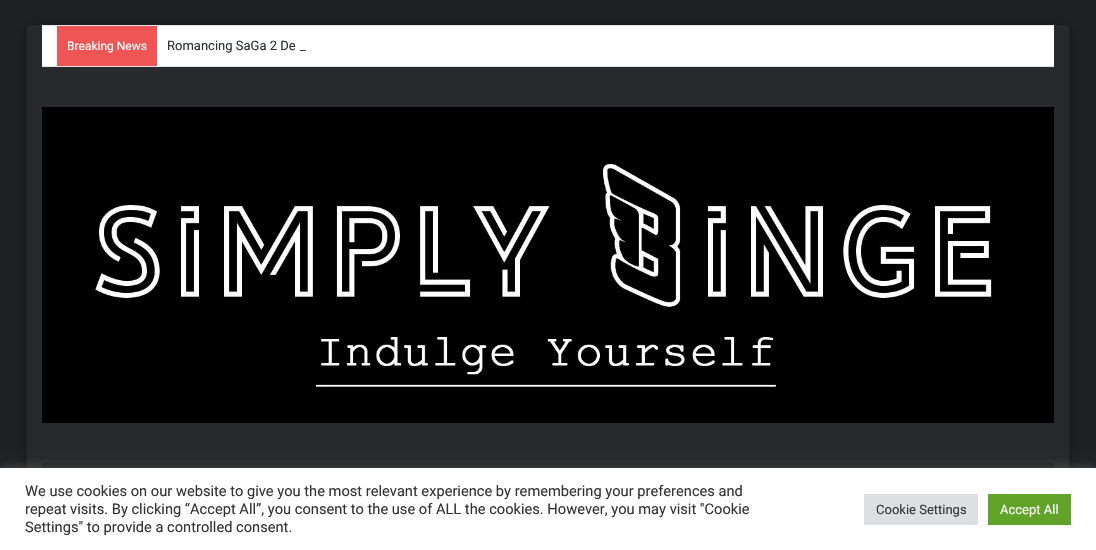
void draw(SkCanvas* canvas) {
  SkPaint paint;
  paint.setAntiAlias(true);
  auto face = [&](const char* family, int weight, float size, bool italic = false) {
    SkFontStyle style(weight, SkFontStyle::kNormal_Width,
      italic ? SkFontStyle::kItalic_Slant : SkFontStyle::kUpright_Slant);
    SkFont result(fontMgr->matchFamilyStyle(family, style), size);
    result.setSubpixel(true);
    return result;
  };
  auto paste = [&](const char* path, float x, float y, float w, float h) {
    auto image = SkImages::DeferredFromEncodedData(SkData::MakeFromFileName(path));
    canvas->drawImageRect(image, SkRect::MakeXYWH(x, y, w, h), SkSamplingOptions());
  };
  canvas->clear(0xff1f2024);
  paint.setColor(0x4d000000);
  paint.setMaskFilter(SkMaskFilter::MakeBlur(kNormal_SkBlurStyle, 5));
  canvas->drawRect(SkRect::MakeXYWH(27, 26, 1042, 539), paint);
  paint.setMaskFilter(nullptr);
  {
    const struct { float x, y, w, h; SkColor color; } items[] = {
      {27, 25, 1042, 443, 0xff27292d},
      {42, 26, 1012, 40, 0xffffffff},
      {42, 25, 1012, 1, 0xffe6e6e6},
      {42, 66, 1012, 1, 0xffe6e6e6},
      {57, 26, 100, 40, 0xfff05555},
    };
    for (auto [x, y, w, h, color] : items) {
      paint.setColor(color);
      canvas->drawRect(SkRect::MakeXYWH(x, y, w, h), paint);
    }
  }
  paste("img/1.png", 42, 107, 1012, 316);
  paint.setColor(0xff1f2024);
  canvas->drawRect(SkRect::MakeXYWH(42, 463, 1012, 5), paint);
  paint.setColor(0x4dacabab);
  paint.setMaskFilter(SkMaskFilter::MakeBlur(kNormal_SkBlurStyle, 5));
  canvas->drawRect(SkRect::MakeXYWH(0, 467, 1096, 82), paint);
  paint.setMaskFilter(nullptr);
  {
    const struct { float x, y, w, h; SkColor color; } items[] = {
      {0, 468, 1096, 82, 0xffffffff},
      {864, 494, 114, 31, 0xffdedfe0},
      {988, 494, 83, 31, 0xff61a229},
    };
    for (auto [x, y, w, h, color] : items) {
      paint.setColor(color);
      canvas->drawRect(SkRect::MakeXYWH(x, y, w, h), paint);
    }
  }
  auto f0 = face("Roboto", 400, 12);
  paint.setColor(0xffffffff);
  canvas->drawString("Breaking News", 67, 50, f0, paint);
  auto f1 = face("Roboto", 400, 13);
  paint.setColor(0xff2c2f34);
  canvas->drawString("Romancing SaGa 2 De", 167, 50, f1, paint);
  canvas->drawString("_", 300, 50, f1, paint);
  auto f2 = face("Roboto", 400, 14.65f);
  paint.setColor(0xff333333);
  {
    const struct { const char* s; float x, y; } items[] = {
      {"We use cookies on our website to give you the most relevant experience by remembering your preferences and", 25, 496},
      {"repeat visits. By clicking “Accept All”, you consent to the use of ALL the cookies. However, you may visit \"Cookie", 25, 514},
      {"Settings\" to provide a controlled consent.", 25, 532},
    };
    for (auto [s, x, y] : items) {
      canvas->drawString(s, x, y, f2, paint);
    }
  }
  canvas->drawString("Cookie Settings", 876, 514, f1, paint);
  paint.setColor(0xffffffff);
  canvas->drawString("Accept All", 1000, 514, f1, paint);
}
